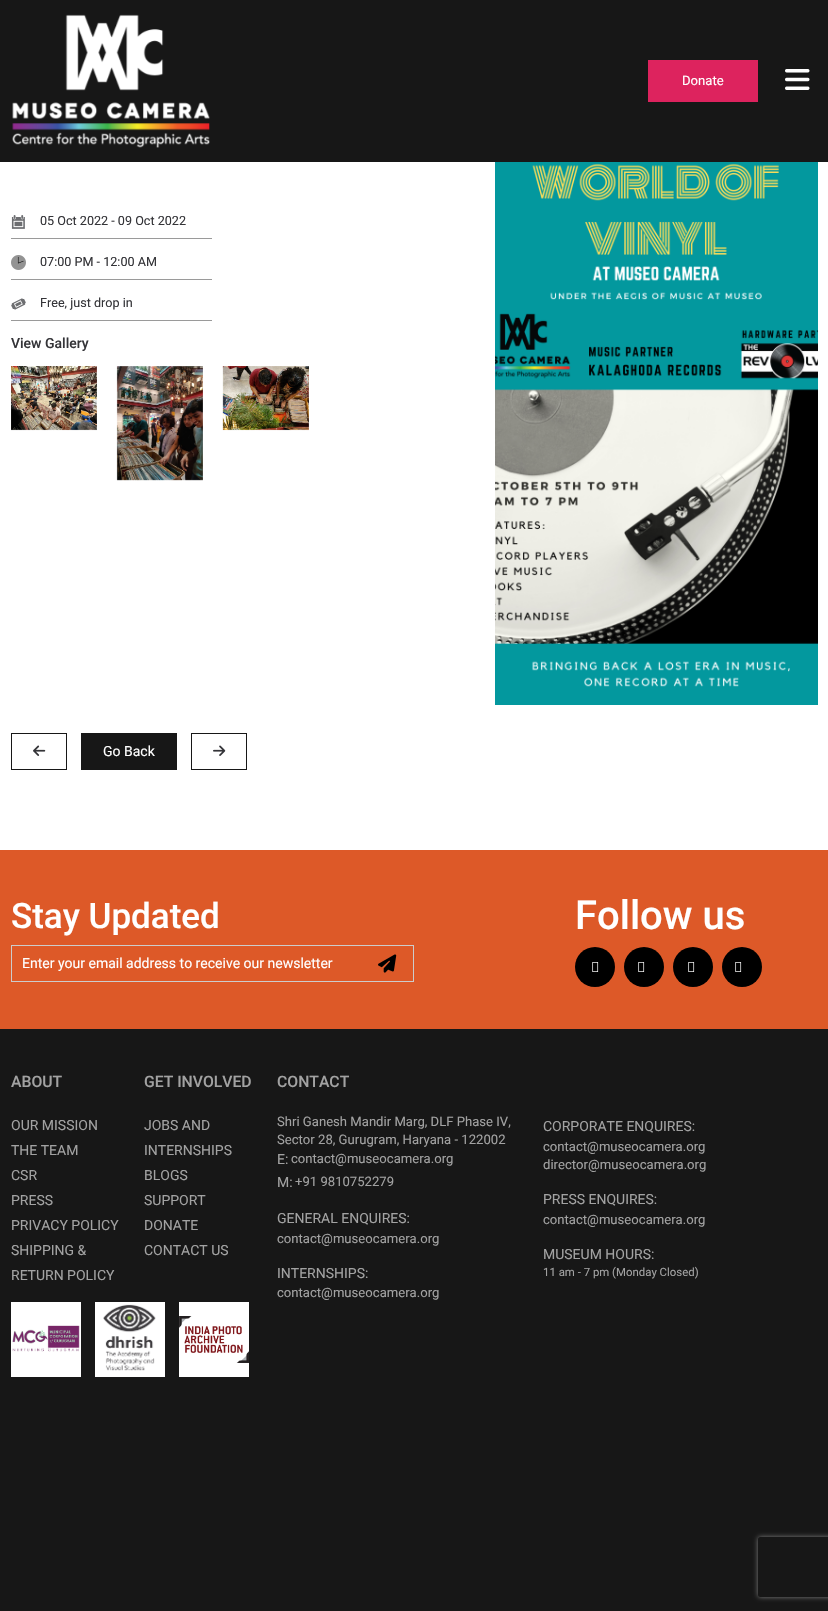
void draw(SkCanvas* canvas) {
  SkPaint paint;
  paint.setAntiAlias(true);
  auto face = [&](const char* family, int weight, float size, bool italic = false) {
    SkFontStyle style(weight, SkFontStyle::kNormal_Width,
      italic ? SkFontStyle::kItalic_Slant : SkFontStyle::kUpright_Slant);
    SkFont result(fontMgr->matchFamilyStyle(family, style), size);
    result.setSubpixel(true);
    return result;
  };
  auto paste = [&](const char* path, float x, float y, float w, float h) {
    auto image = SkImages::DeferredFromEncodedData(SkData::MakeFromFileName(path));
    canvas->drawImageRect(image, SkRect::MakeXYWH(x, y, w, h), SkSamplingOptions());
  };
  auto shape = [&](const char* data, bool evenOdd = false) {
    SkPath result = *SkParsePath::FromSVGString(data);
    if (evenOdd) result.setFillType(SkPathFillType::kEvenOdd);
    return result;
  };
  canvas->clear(0xffffffff);
  paint.setColor(0xff171717);
  canvas->drawRect(SkRect::MakeXYWH(0, 0, 828, 162), paint);
  paste("img/1.png", 12, 14, 198, 134);
  paint.setColor(0xffdd235e);
  canvas->drawRect(SkRect::MakeXYWH(648, 60, 110, 42), paint);
  paste("img/2.png", 785, 69, 25, 21);
  paint.setColor(0xff9a9a9a);
  canvas->drawRect(SkRect::MakeXYWH(11, 238, 201, 1), paint);
  paste("img/3.png", 11, 215, 14, 14);
  canvas->drawRect(SkRect::MakeXYWH(11, 279, 201, 1), paint);
  paste("img/4.png", 11, 255, 15, 15);
  canvas->drawRect(SkRect::MakeXYWH(11, 320, 201, 1), paint);
  paste("img/5.png", 11, 298, 15, 12);
  paste("img/6.png", 11, 366, 86, 65);
  paste("img/7.png", 116, 366, 87, 115);
  paste("img/8.png", 222, 366, 87, 65);
  paste("img/9.png", 495, 162, 323, 543);
  paint.setStroke(true);
  paint.setStrokeWidth(1);
  paint.setColor(0xff171717);
  canvas->drawRect(SkRect::MakeXYWH(11.5f, 733.5f, 55, 36), paint);
  paste("img/10.png", 33, 745, 13, 11);
  paint.setStroke(false);
  canvas->drawRect(SkRect::MakeXYWH(81, 733, 96, 37), paint);
  paint.setStroke(true);
  canvas->drawRect(SkRect::MakeXYWH(191.5f, 733.5f, 55, 36), paint);
  paste("img/11.png", 213, 745, 13, 11);
  paint.setStroke(false);
  paint.setColor(0xffdd5928);
  canvas->drawRect(SkRect::MakeXYWH(0, 850, 828, 179), paint);
  paint.setStroke(true);
  paint.setColor(0xffcccccc);
  canvas->drawRect(SkRect::MakeXYWH(11.5f, 945.5f, 402, 36), paint);
  paste("img/12.png", 378, 954, 19, 19);
  paint.setStroke(false);
  paint.setColor(0xff000000);
  canvas->drawCircle(595, 967, 20, paint);
  paste("img/13.png", 592, 962, 7, 10);
  canvas->drawCircle(644, 967, 20, paint);
  paste("img/13.png", 638, 962, 7, 10);
  canvas->drawCircle(693, 967, 20, paint);
  paste("img/13.png", 688, 962, 7, 10);
  canvas->drawCircle(742, 967, 20, paint);
  paste("img/13.png", 735, 962, 7, 10);
  paint.setColor(0xff171717);
  canvas->drawRect(SkRect::MakeXYWH(0, 1029, 828, 582), paint);
  paint.setColor(0xffffffff);
  canvas->drawRect(SkRect::MakeXYWH(11, 1302, 70, 75), paint);
  paste("img/14.png", 12, 1325, 68, 27);
  canvas->drawRect(SkRect::MakeXYWH(95, 1302, 70, 75), paint);
  paste("img/15.png", 103, 1304, 53, 67);
  canvas->drawRect(SkRect::MakeXYWH(179, 1302, 70, 75), paint);
  paste("img/16.png", 179, 1316, 70, 47);
  canvas->save();
  canvas->clipPath(shape("M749 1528H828V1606H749ZM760 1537H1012C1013 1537 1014 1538 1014 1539V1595C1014 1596 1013 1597 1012 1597H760C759 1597 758 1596 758 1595V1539C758 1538 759 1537 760 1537Z", true), true);
  paint.setColor(0xff808080);
  paint.setMaskFilter(SkMaskFilter::MakeBlur(kNormal_SkBlurStyle, 2.5f));
  canvas->drawRoundRect(SkRect::MakeXYWH(758, 1537, 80, 60), 2, 2, paint);
  paint.setMaskFilter(nullptr);
  canvas->restore();
  auto f0 = face("Roboto", 400, 13.1f);
  paint.setColor(0xffffffff);
  canvas->drawString("Donate", 682, 85, f0, paint);
  auto f1 = face("Roboto", 400, 12.6f);
  paint.setColor(0xff343438);
  {
    const struct { const char* s; float x, y; } items[] = {
      {"05 Oct 2022 - 09 Oct 2022", 40, 225},
      {"07:00 PM - 12:00 AM", 40, 266},
      {"Free, just drop in", 40, 307},
    };
    for (auto [s, x, y] : items) {
      canvas->drawString(s, x, y, f1, paint);
    }
  }
  auto f2 = face("Roboto", 500, 14);
  canvas->drawString("View Gallery", 11, 348, f2, paint);
  auto f3 = face("Roboto", 400, 14);
  paint.setColor(0xffffffff);
  canvas->drawString("Go Back", 103, 756, f3, paint);
  auto f4 = face("Roboto", 500, 35);
  canvas->drawString("Stay Updated", 11, 928, f4, paint);
  canvas->drawString("Enter your email address to receive our newsletter", 22, 968, f3, paint);
  auto f5 = face("Roboto", 500, 40);
  canvas->drawString("Follow us", 575, 929, f5, paint);
  auto f6 = face("Roboto", 500, 15.75f);
  paint.setColor(0xffa2a2a2);
  canvas->drawString("ABOUT", 11, 1087, f6, paint);
  {
    const struct { const char* s; float x, y; } items[] = {
      {"OUR MISSION", 11, 1130},
      {"THE TEAM", 11, 1155},
      {"CSR", 11, 1180},
      {"PRESS", 11, 1205},
      {"PRIVACY POLICY", 11, 1230},
      {"SHIPPING &", 11, 1255},
      {"RETURN POLICY", 11, 1280},
    };
    for (auto [s, x, y] : items) {
      canvas->drawString(s, x, y, f3, paint);
    }
  }
  canvas->drawString("GET INVOLVED", 144, 1087, f6, paint);
  {
    const struct { const char* s; float x, y; } items[] = {
      {"JOBS AND", 144, 1130},
      {"INTERNSHIPS", 144, 1155},
      {"BLOGS", 144, 1180},
      {"SUPPORT", 144, 1205},
      {"DONATE", 144, 1230},
      {"CONTACT US", 144, 1255},
    };
    for (auto [s, x, y] : items) {
      canvas->drawString(s, x, y, f3, paint);
    }
  }
  canvas->drawString("CONTACT", 277, 1087, f6, paint);
  canvas->drawString("Shri Ganesh Mandir Marg, DLF Phase IV,", 277, 1126, f0, paint);
  canvas->drawString("Sector 28, Gurugram, Haryana - 122002", 277, 1144, f0, paint);
  canvas->drawString("E:", 277, 1164, f3, paint);
  canvas->drawString("contact@museocamera.org", 291, 1163, f0, paint);
  canvas->drawString("M:", 277, 1187, f3, paint);
  canvas->drawString("+91 9810752279", 295, 1186, f0, paint);
  canvas->drawString("GENERAL ENQUIRES:", 277, 1223, f3, paint);
  canvas->drawString("contact@museocamera.org", 277, 1243, f0, paint);
  canvas->drawString("INTERNSHIPS:", 277, 1278, f3, paint);
  canvas->drawString("contact@museocamera.org", 277, 1297, f0, paint);
  canvas->drawString("CORPORATE ENQUIRES:", 543, 1131, f3, paint);
  canvas->drawString("contact@museocamera.org", 543, 1151, f0, paint);
  canvas->drawString("director@museocamera.org", 543, 1169, f0, paint);
  canvas->drawString("PRESS ENQUIRES:", 543, 1204, f3, paint);
  canvas->drawString("contact@museocamera.org", 543, 1224, f0, paint);
  canvas->drawString("MUSEUM HOURS:", 543, 1259, f3, paint);
  auto f7 = face("Roboto", 400, 11.4f);
  canvas->drawString("11 am - 7 pm (Monday Closed)", 543, 1276, f7, paint);
}
